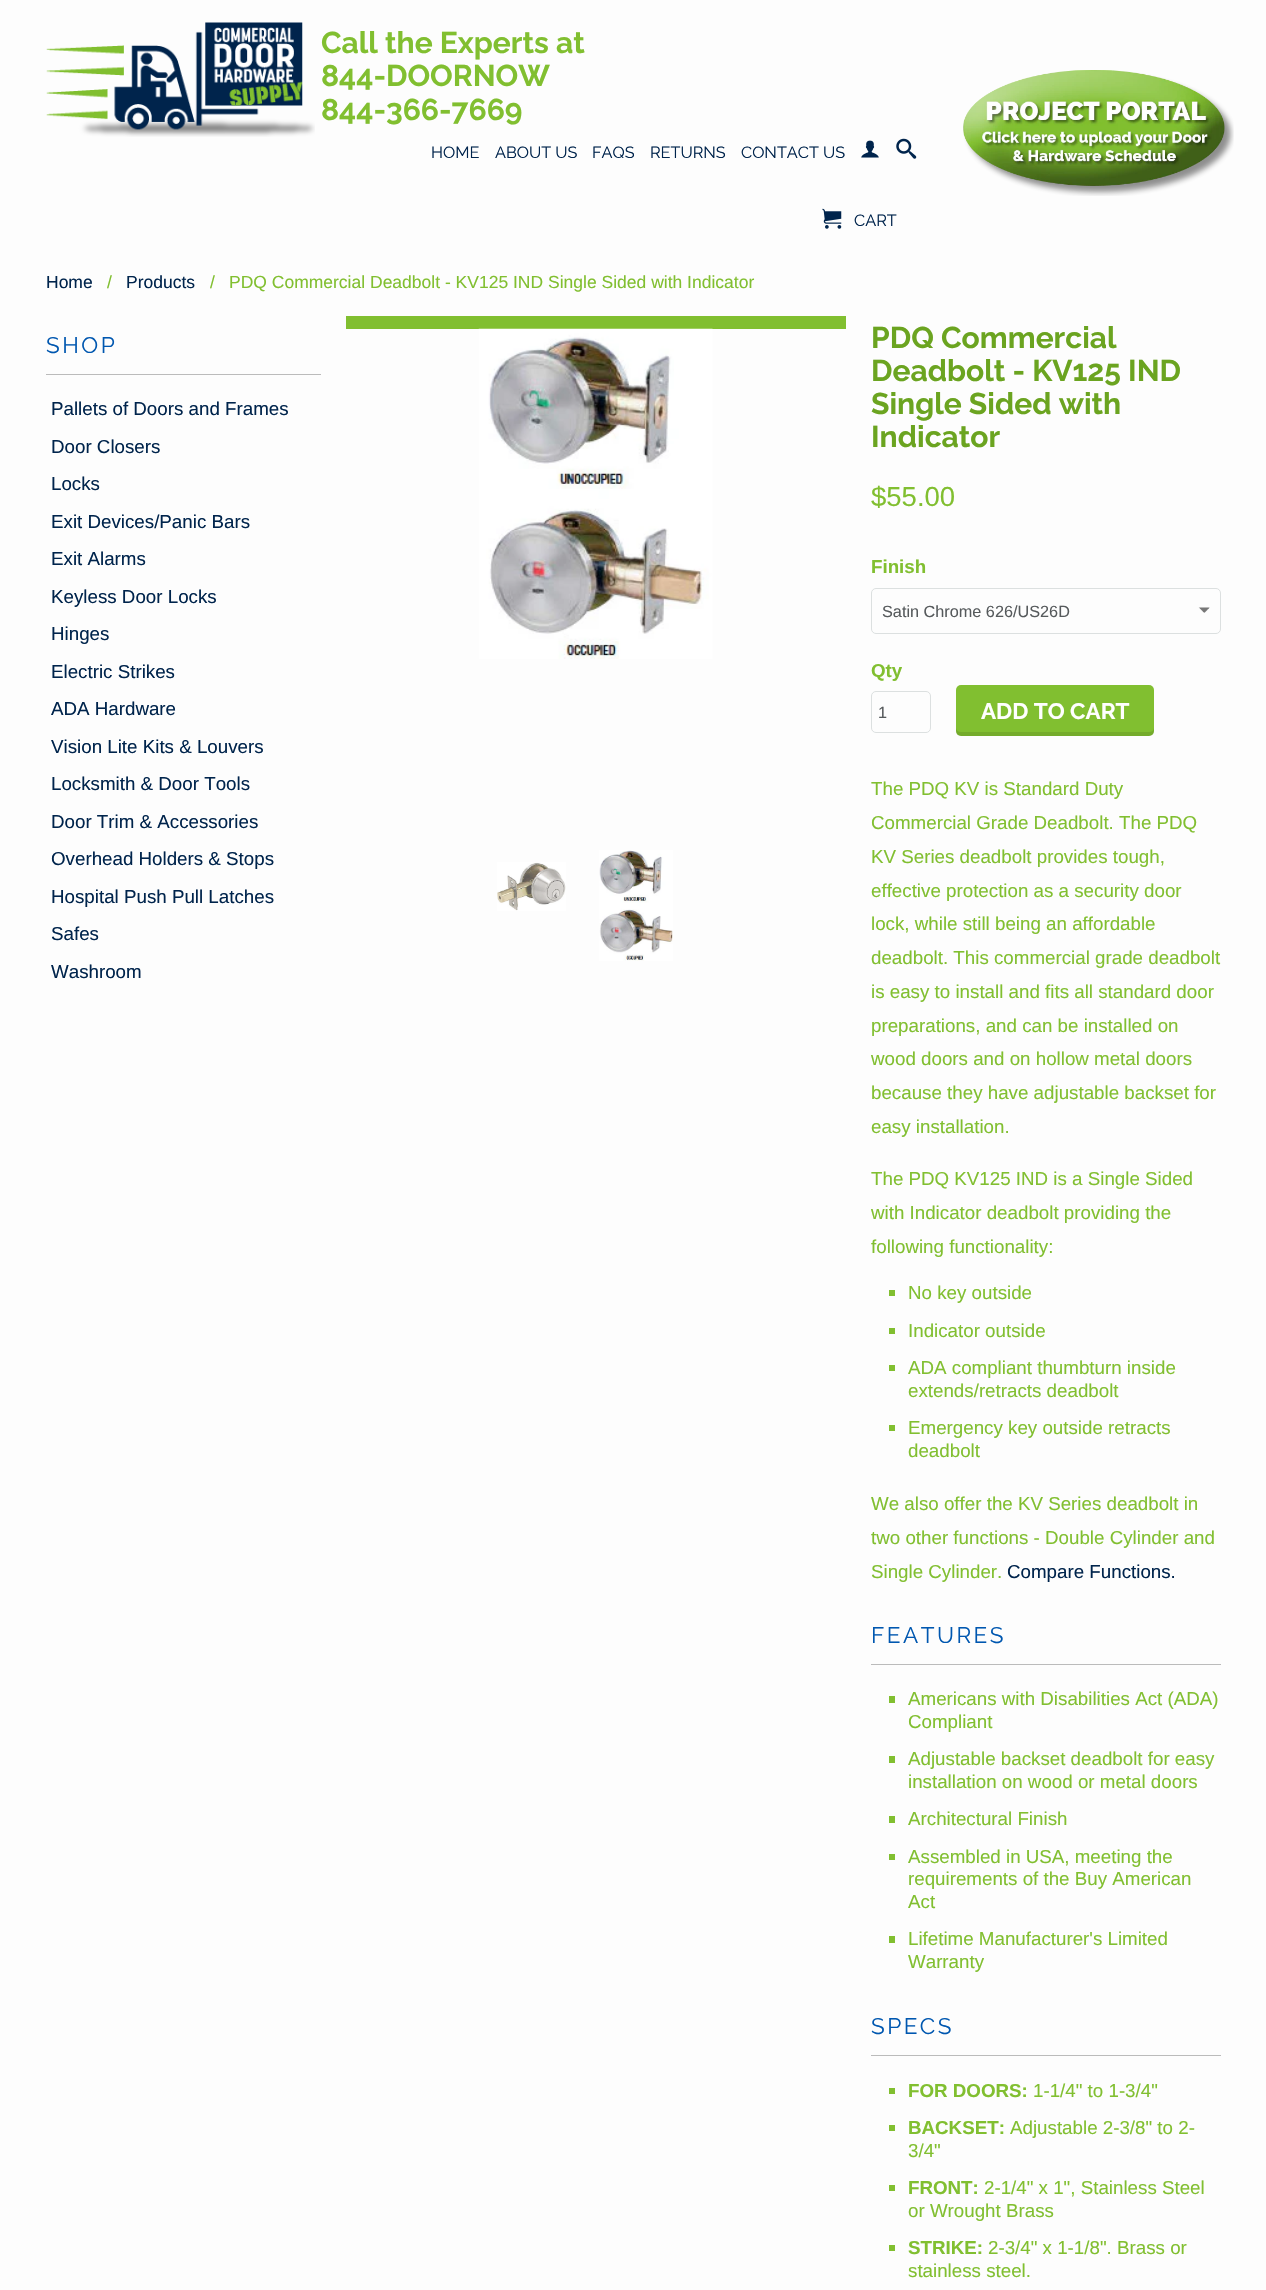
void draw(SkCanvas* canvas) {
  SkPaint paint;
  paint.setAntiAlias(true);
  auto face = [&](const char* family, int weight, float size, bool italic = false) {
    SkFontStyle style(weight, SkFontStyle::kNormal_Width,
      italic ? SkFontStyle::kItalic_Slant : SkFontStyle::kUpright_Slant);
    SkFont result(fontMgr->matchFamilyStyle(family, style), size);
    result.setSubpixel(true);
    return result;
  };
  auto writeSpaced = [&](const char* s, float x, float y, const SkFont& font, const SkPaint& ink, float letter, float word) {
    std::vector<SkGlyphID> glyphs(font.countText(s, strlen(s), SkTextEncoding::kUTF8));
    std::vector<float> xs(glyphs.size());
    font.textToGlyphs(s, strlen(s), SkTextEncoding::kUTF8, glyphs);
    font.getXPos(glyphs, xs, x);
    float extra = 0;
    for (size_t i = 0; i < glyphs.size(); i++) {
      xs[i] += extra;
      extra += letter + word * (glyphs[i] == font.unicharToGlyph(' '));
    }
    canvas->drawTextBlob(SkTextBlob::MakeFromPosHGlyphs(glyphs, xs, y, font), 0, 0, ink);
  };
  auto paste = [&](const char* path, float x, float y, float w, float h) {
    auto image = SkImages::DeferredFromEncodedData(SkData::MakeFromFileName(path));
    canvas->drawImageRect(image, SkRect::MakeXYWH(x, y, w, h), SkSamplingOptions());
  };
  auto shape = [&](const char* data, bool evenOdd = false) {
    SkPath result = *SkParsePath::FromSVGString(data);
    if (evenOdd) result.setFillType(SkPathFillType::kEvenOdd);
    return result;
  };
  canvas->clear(0xfffdfdfd);
  paste("img/1.png", 46, 22, 269, 115);
  paste("img/2.png", 861, 140, 18, 18);
  paste("img/3.png", 896, 138, 21, 21);
  paste("img/4.png", 822, 208, 20, 21);
  paste("img/5.png", 963, 70, 271, 126);
  paint.setColor(0xffbbbbbb);
  canvas->drawRect(SkRect::MakeXYWH(46, 374, 275, 1), paint);
  paint.setColor(0xff81bf30);
  canvas->drawRect(SkRect::MakeXYWH(346, 316, 500, 13), paint);
  paste("img/6.png", 478, 328, 235, 331);
  paste("img/7.png", 497, 862, 69, 49);
  paste("img/8.png", 599, 850, 74, 111);
  paste("img/9.png", 1198, 607, 12, 6);
  paint.setStroke(true);
  paint.setStrokeWidth(1);
  paint.setColor(0xffdce0e0);
  canvas->drawRoundRect(SkRect::MakeXYWH(871.5f, 588.5f, 349, 45), 4.5f, 4.5f, paint);
  canvas->drawRoundRect(SkRect::MakeXYWH(871.5f, 691.5f, 59, 41), 4.5f, 4.5f, paint);
  paint.setStroke(false);
  paint.setColor(0xff81bf30);
  canvas->drawRoundRect(SkRect::MakeXYWH(956, 685, 198, 51), 5, 5, paint);
  paint.setColor(0x1a000000);
  canvas->drawPath(shape("M956 728V731C956 734 958 736 961 736H1149C1152 736 1154 734 1154 731V728C1154 730 1152 732 1149 732H961C958 732 956 730 956 728Z"), paint);
  {
    const struct { float x, y, w, h; SkColor color; } items[] = {
      {889, 1290, 6, 6, 0xff81bf30},
      {889, 1328, 6, 6, 0xff81bf30},
      {889, 1365, 6, 6, 0xff81bf30},
      {889, 1425, 6, 6, 0xff81bf30},
      {871, 1664, 350, 1, 0xffbbbbbb},
      {889, 1696, 6, 7, 0xff81bf30},
      {889, 1756, 6, 7, 0xff81bf30},
      {889, 1816, 6, 7, 0xff81bf30},
      {889, 1854, 6, 6, 0xff81bf30},
      {889, 1936, 6, 7, 0xff81bf30},
      {871, 2055, 350, 1, 0xffbbbbbb},
      {889, 2088, 6, 6, 0xff81bf30},
      {889, 2125, 6, 6, 0xff81bf30},
      {889, 2185, 6, 6, 0xff81bf30},
      {889, 2245, 6, 6, 0xff81bf30},
    };
    for (auto [x, y, w, h, color] : items) {
      paint.setColor(color);
      canvas->drawRect(SkRect::MakeXYWH(x, y, w, h), paint);
    }
  }
  auto f0 = face("Raleway", 700, 30);
  {
    const struct { const char* s; float x, y; } items[] = {
      {"Call the Experts at", 321, 53},
      {"844-DOORNOW", 321, 86},
      {"844-366-7669", 321, 120},
    };
    for (auto [s, x, y] : items) {
      canvas->drawString(s, x, y, f0, paint);
    }
  }
  auto f1 = face("Raleway", 400, 16.25f);
  paint.setColor(0xff00244c);
  {
    const struct { const char* s; float x, y; } items[] = {
      {"HOME", 431, 158},
      {"ABOUT US", 495, 158},
      {"FAQS", 592, 158},
      {"RETURNS", 650, 158},
      {"CONTACT US", 741, 158},
      {"CART", 854, 226},
    };
    for (auto [s, x, y] : items) {
      canvas->drawString(s, x, y, f1, paint);
    }
  }
  auto f2 = face("Liberation Sans", 400, 17.5f);
  canvas->drawString("Home", 46, 288, f2, paint);
  paint.setColor(0xff81bf30);
  canvas->drawString("/", 107, 288, f2, paint);
  paint.setColor(0xff00244c);
  canvas->drawString("Products", 126, 288, f2, paint);
  paint.setColor(0xff81bf30);
  canvas->drawString("/", 210, 288, f2, paint);
  canvas->drawString("PDQ Commercial Deadbolt - KV125 IND Single Sided with Indicator", 229, 288, f2, paint);
  auto f3 = face("Raleway", 400, 22.5f);
  paint.setColor(0xff0057b0);
  writeSpaced("SHOP", 46, 353, f3, paint, 2.5f, 0);
  auto f4 = face("Liberation Sans", 400, 18.75f);
  paint.setColor(0xff00244c);
  {
    const struct { const char* s; float x, y; } items[] = {
      {"Pallets of Doors and Frames", 51, 415},
      {"Door Closers", 51, 453},
      {"Locks", 51, 490},
      {"Exit Devices/Panic Bars", 51, 528},
      {"Exit Alarms", 51, 565},
      {"Keyless Door Locks", 51, 603},
      {"Hinges", 51, 640},
      {"Electric Strikes", 51, 678},
      {"ADA Hardware", 51, 715},
      {"Vision Lite Kits & Louvers", 51, 753},
      {"Locksmith & Door Tools", 51, 790},
      {"Door Trim & Accessories", 51, 828},
      {"Overhead Holders & Stops", 51, 865},
      {"Hospital Push Pull Latches", 51, 903},
      {"Safes", 51, 940},
      {"Washroom", 51, 978},
    };
    for (auto [s, x, y] : items) {
      canvas->drawString(s, x, y, f4, paint);
    }
  }
  paint.setColor(0xff6ba420);
  {
    const struct { const char* s; float x, y; } items[] = {
      {"PDQ Commercial", 871, 348},
      {"Deadbolt - KV125 IND", 871, 381},
      {"Single Sided with", 871, 414},
      {"Indicator", 871, 447},
    };
    for (auto [s, x, y] : items) {
      canvas->drawString(s, x, y, f0, paint);
    }
  }
  auto f5 = face("Liberation Sans", 400, 27.5f);
  paint.setColor(0xff81bf30);
  canvas->drawString("$55.00", 871, 506, f5, paint);
  auto f6 = face("Liberation Sans", 700, 18.75f);
  canvas->drawString("Finish", 871, 573, f6, paint);
  auto f7 = face("Liberation Sans", 400, 16.25f);
  paint.setColor(0xff565a5c);
  canvas->drawString("Satin Chrome 626/US26D", 882, 617, f7, paint);
  paint.setColor(0xff81bf30);
  canvas->drawString("Qty", 871, 677, f6, paint);
  paint.setColor(0xff565a5c);
  canvas->drawString("1", 878, 718, f7, paint);
  auto f8 = face("Raleway", 700, 22.5f);
  paint.setColor(0xffffffff);
  canvas->drawString("ADD TO CART", 981, 719, f8, paint);
  paint.setColor(0xff81bf30);
  {
    const struct { const char* s; float x, y; } items[] = {
      {"The PDQ KV is Standard Duty", 871, 795},
      {"Commercial Grade Deadbolt. The PDQ", 871, 829},
      {"KV Series deadbolt provides tough,", 871, 863},
      {"effective protection as a security door", 871, 897},
      {"lock, while still being an affordable", 871, 930},
      {"deadbolt. This commercial grade deadbolt", 871, 964},
      {"is easy to install and fits all standard door", 871, 998},
      {"preparations, and can be installed on", 871, 1032},
      {"wood doors and on hollow metal doors", 871, 1065},
      {"because they have adjustable backset for", 871, 1099},
      {"easy installation.", 871, 1133},
      {"The PDQ KV125 IND is a Single Sided", 871, 1185},
      {"with Indicator deadbolt providing the", 871, 1219},
      {"following functionality:", 871, 1253},
      {"No key outside", 908, 1299},
      {"Indicator outside", 908, 1337},
      {"ADA compliant thumbturn inside", 908, 1374},
      {"extends/retracts deadbolt", 908, 1397},
      {"Emergency key outside retracts", 908, 1434},
      {"deadbolt", 908, 1457},
      {"We also offer the KV Series deadbolt in", 871, 1510},
      {"two other functions - Double Cylinder and", 871, 1544},
      {"Single Cylinder.", 871, 1578},
    };
    for (auto [s, x, y] : items) {
      canvas->drawString(s, x, y, f4, paint);
    }
  }
  paint.setColor(0xff00244c);
  canvas->drawString("Compare Functions.", 1007, 1578, f4, paint);
  paint.setColor(0xff0057b0);
  writeSpaced("FEATURES", 871, 1643, f3, paint, 2.5f, 0);
  paint.setColor(0xff81bf30);
  {
    const struct { const char* s; float x, y; } items[] = {
      {"Americans with Disabilities Act (ADA)", 908, 1705},
      {"Compliant", 908, 1728},
      {"Adjustable backset deadbolt for easy", 908, 1765},
      {"installation on wood or metal doors", 908, 1788},
      {"Architectural Finish", 908, 1825},
      {"Assembled in USA, meeting the", 908, 1863},
      {"requirements of the Buy American", 908, 1885},
      {"Act", 908, 1908},
      {"Lifetime Manufacturer's Limited", 908, 1945},
      {"Warranty", 908, 1968},
    };
    for (auto [s, x, y] : items) {
      canvas->drawString(s, x, y, f4, paint);
    }
  }
  paint.setColor(0xff0057b0);
  writeSpaced("SPECS", 871, 2034, f3, paint, 2.5f, 0);
  paint.setColor(0xff81bf30);
  canvas->drawString("FOR DOORS:", 908, 2097, f6, paint);
  canvas->drawString("1-1/4\" to 1-3/4\"", 1033, 2097, f4, paint);
  canvas->drawString("BACKSET:", 908, 2134, f6, paint);
  canvas->drawString("Adjustable 2-3/8\" to 2-", 1010, 2134, f4, paint);
  canvas->drawString("3/4\"", 908, 2157, f4, paint);
  canvas->drawString("FRONT:", 908, 2194, f6, paint);
  canvas->drawString("2-1/4\" x 1\", Stainless Steel", 984, 2194, f4, paint);
  canvas->drawString("or Wrought Brass", 908, 2217, f4, paint);
  canvas->drawString("STRIKE:", 908, 2254, f6, paint);
  canvas->drawString("2-3/4\" x 1-1/8\". Brass or", 988, 2254, f4, paint);
  canvas->drawString("stainless steel.", 908, 2277, f4, paint);
}
